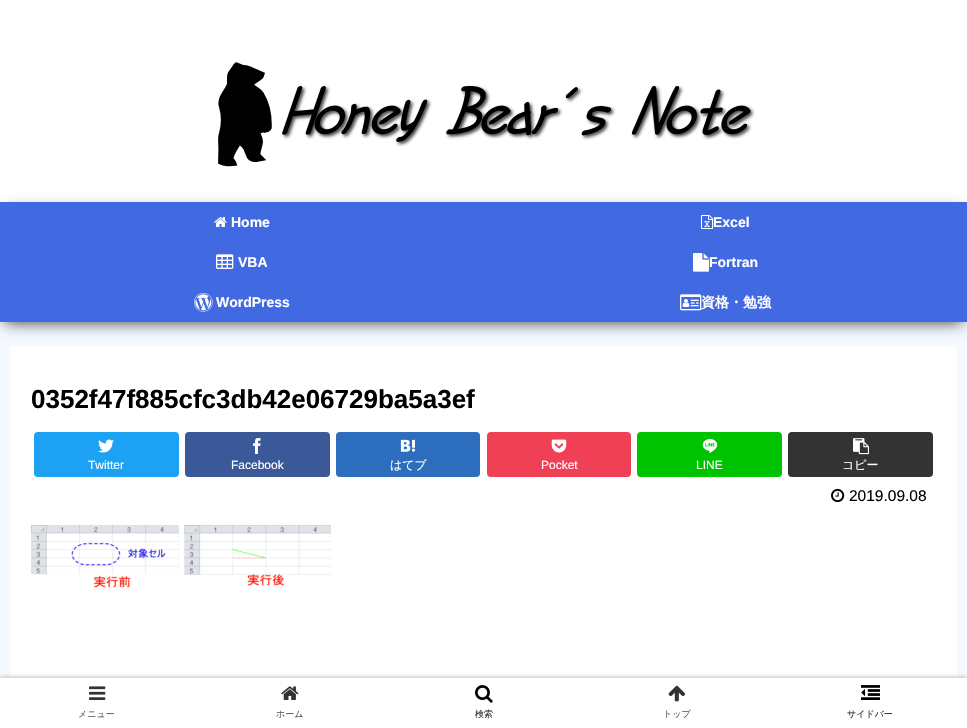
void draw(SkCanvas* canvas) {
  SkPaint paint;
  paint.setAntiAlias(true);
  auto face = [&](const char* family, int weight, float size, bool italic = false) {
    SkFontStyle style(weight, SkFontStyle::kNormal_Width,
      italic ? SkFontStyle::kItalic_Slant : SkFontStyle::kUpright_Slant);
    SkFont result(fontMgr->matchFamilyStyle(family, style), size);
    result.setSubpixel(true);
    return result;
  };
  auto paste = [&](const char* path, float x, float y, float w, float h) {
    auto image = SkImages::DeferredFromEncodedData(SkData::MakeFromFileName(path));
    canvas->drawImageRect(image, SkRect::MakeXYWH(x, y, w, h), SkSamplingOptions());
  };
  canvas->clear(0xfff4f9ff);
  paint.setColor(0xffffffff);
  canvas->drawRect(SkRect::MakeXYWH(0, 0, 967, 202), paint);
  paste("img/1.png", 218, 62, 537, 105);
  paint.setColor(0xcc000000);
  paint.setMaskFilter(SkMaskFilter::MakeBlur(kNormal_SkBlurStyle, 7.5f));
  canvas->drawRect(SkRect::MakeXYWH(5, 212, 957, 110), paint);
  paint.setMaskFilter(nullptr);
  paint.setColor(0xff4169e1);
  canvas->drawRect(SkRect::MakeXYWH(0, 202, 967, 120), paint);
  paste("img/2.png", 214, 217, 13, 10);
  paste("img/3.png", 701, 215, 12, 14);
  paste("img/4.png", 216, 254, 18, 15);
  paste("img/5.png", 693, 253, 16, 19);
  paste("img/6.png", 194, 293, 19, 19);
  paste("img/7.png", 680, 294, 22, 17);
  paint.setColor(0xffffffff);
  canvas->drawRoundRect(SkRect::MakeXYWH(10, 346, 947, 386), 4, 4, paint);
  paint.setColor(0xff1da1f2);
  canvas->drawRoundRect(SkRect::MakeXYWH(34, 432, 145, 45), 4, 4, paint);
  paste("img/8.png", 98, 439, 16, 14);
  paint.setColor(0xff3b5998);
  canvas->drawRoundRect(SkRect::MakeXYWH(185, 432, 145, 45), 4, 4, paint);
  paste("img/9.png", 253, 438, 8, 16);
  paint.setColor(0xff2c6ebd);
  canvas->drawRoundRect(SkRect::MakeXYWH(336, 432, 144, 45), 4, 4, paint);
  paste("img/10.png", 400, 439, 16, 13);
  paint.setColor(0xffef4056);
  canvas->drawRoundRect(SkRect::MakeXYWH(487, 432, 144, 45), 4, 4, paint);
  paste("img/11.png", 551, 439, 16, 14);
  paint.setColor(0xff00c300);
  canvas->drawRoundRect(SkRect::MakeXYWH(637, 432, 145, 45), 4, 4, paint);
  paste("img/12.png", 702, 439, 16, 14);
  paint.setColor(0xff333333);
  canvas->drawRoundRect(SkRect::MakeXYWH(788, 432, 145, 45), 4, 4, paint);
  paste("img/13.png", 853, 438, 16, 17);
  paste("img/14.png", 831, 488, 14, 15);
  paste("img/15.png", 31, 525, 300, 63);
  paint.setColor(0xffa9a9a9);
  paint.setMaskFilter(SkMaskFilter::MakeBlur(kNormal_SkBlurStyle, 2.5f));
  canvas->drawRect(SkRect::MakeXYWH(0, 678, 967, 50), paint);
  paint.setMaskFilter(nullptr);
  paint.setColor(0xffffffff);
  canvas->drawRect(SkRect::MakeXYWH(0, 678, 967, 50), paint);
  paste("img/16.png", 89, 686, 17, 14);
  paste("img/17.png", 281, 686, 18, 14);
  paste("img/18.png", 475, 685, 18, 18);
  paste("img/19.png", 668, 685, 17, 17);
  paste("img/20.png", 861, 685, 19, 15);
  auto f0 = face("Liberation Sans", 700, 14);
  {
    const struct { const char* s; float x, y; } items[] = {
      {"Home", 231, 227},
      {"Excel", 713, 227},
      {"VBA", 238, 267},
      {"Fortran", 709, 267},
      {"WordPress", 216, 307},
    };
    for (auto [s, x, y] : items) {
      canvas->drawString(s, x, y, f0, paint);
    }
  }
  auto f1 = face("WenQuanYi Zen Hei", 700, 14);
  canvas->drawString("資格・勉強", 701, 307, f1, paint);
  auto f2 = face("Liberation Sans", 700, 26);
  paint.setColor(0xff000000);
  canvas->drawString("0352f47f885cfc3db42e06729ba5a3ef", 31, 408, f2, paint);
  auto f3 = face("Liberation Sans", 400, 12);
  paint.setColor(0xffffffff);
  canvas->drawString("Twitter", 88, 469, f3, paint);
  canvas->drawString("Facebook", 231, 469, f3, paint);
  auto f4 = face("WenQuanYi Zen Hei", 500, 12);
  canvas->drawString("はてブ", 390, 469, f4, paint);
  canvas->drawString("Pocket", 541, 469, f3, paint);
  canvas->drawString("LINE", 696, 469, f3, paint);
  canvas->drawString("コピー", 842, 469, f4, paint);
  auto f5 = face("Liberation Sans", 400, 15.5f);
  paint.setColor(0xff000000);
  canvas->drawString("2019.09.08", 849, 501, f5, paint);
  auto f6 = face("WenQuanYi Zen Hei", 500, 9);
  paint.setColor(0xff5c5c5c);
  canvas->drawString("メニュー", 78, 717, f6, paint);
  canvas->drawString("ホーム", 276, 717, f6, paint);
  paint.setColor(0xff333333);
  canvas->drawString("検索", 475, 717, f6, paint);
  paint.setColor(0xff5c5c5c);
  canvas->drawString("トップ", 663, 717, f6, paint);
  paint.setColor(0xff333333);
  canvas->drawString("サイドバー", 847, 717, f6, paint);
}
